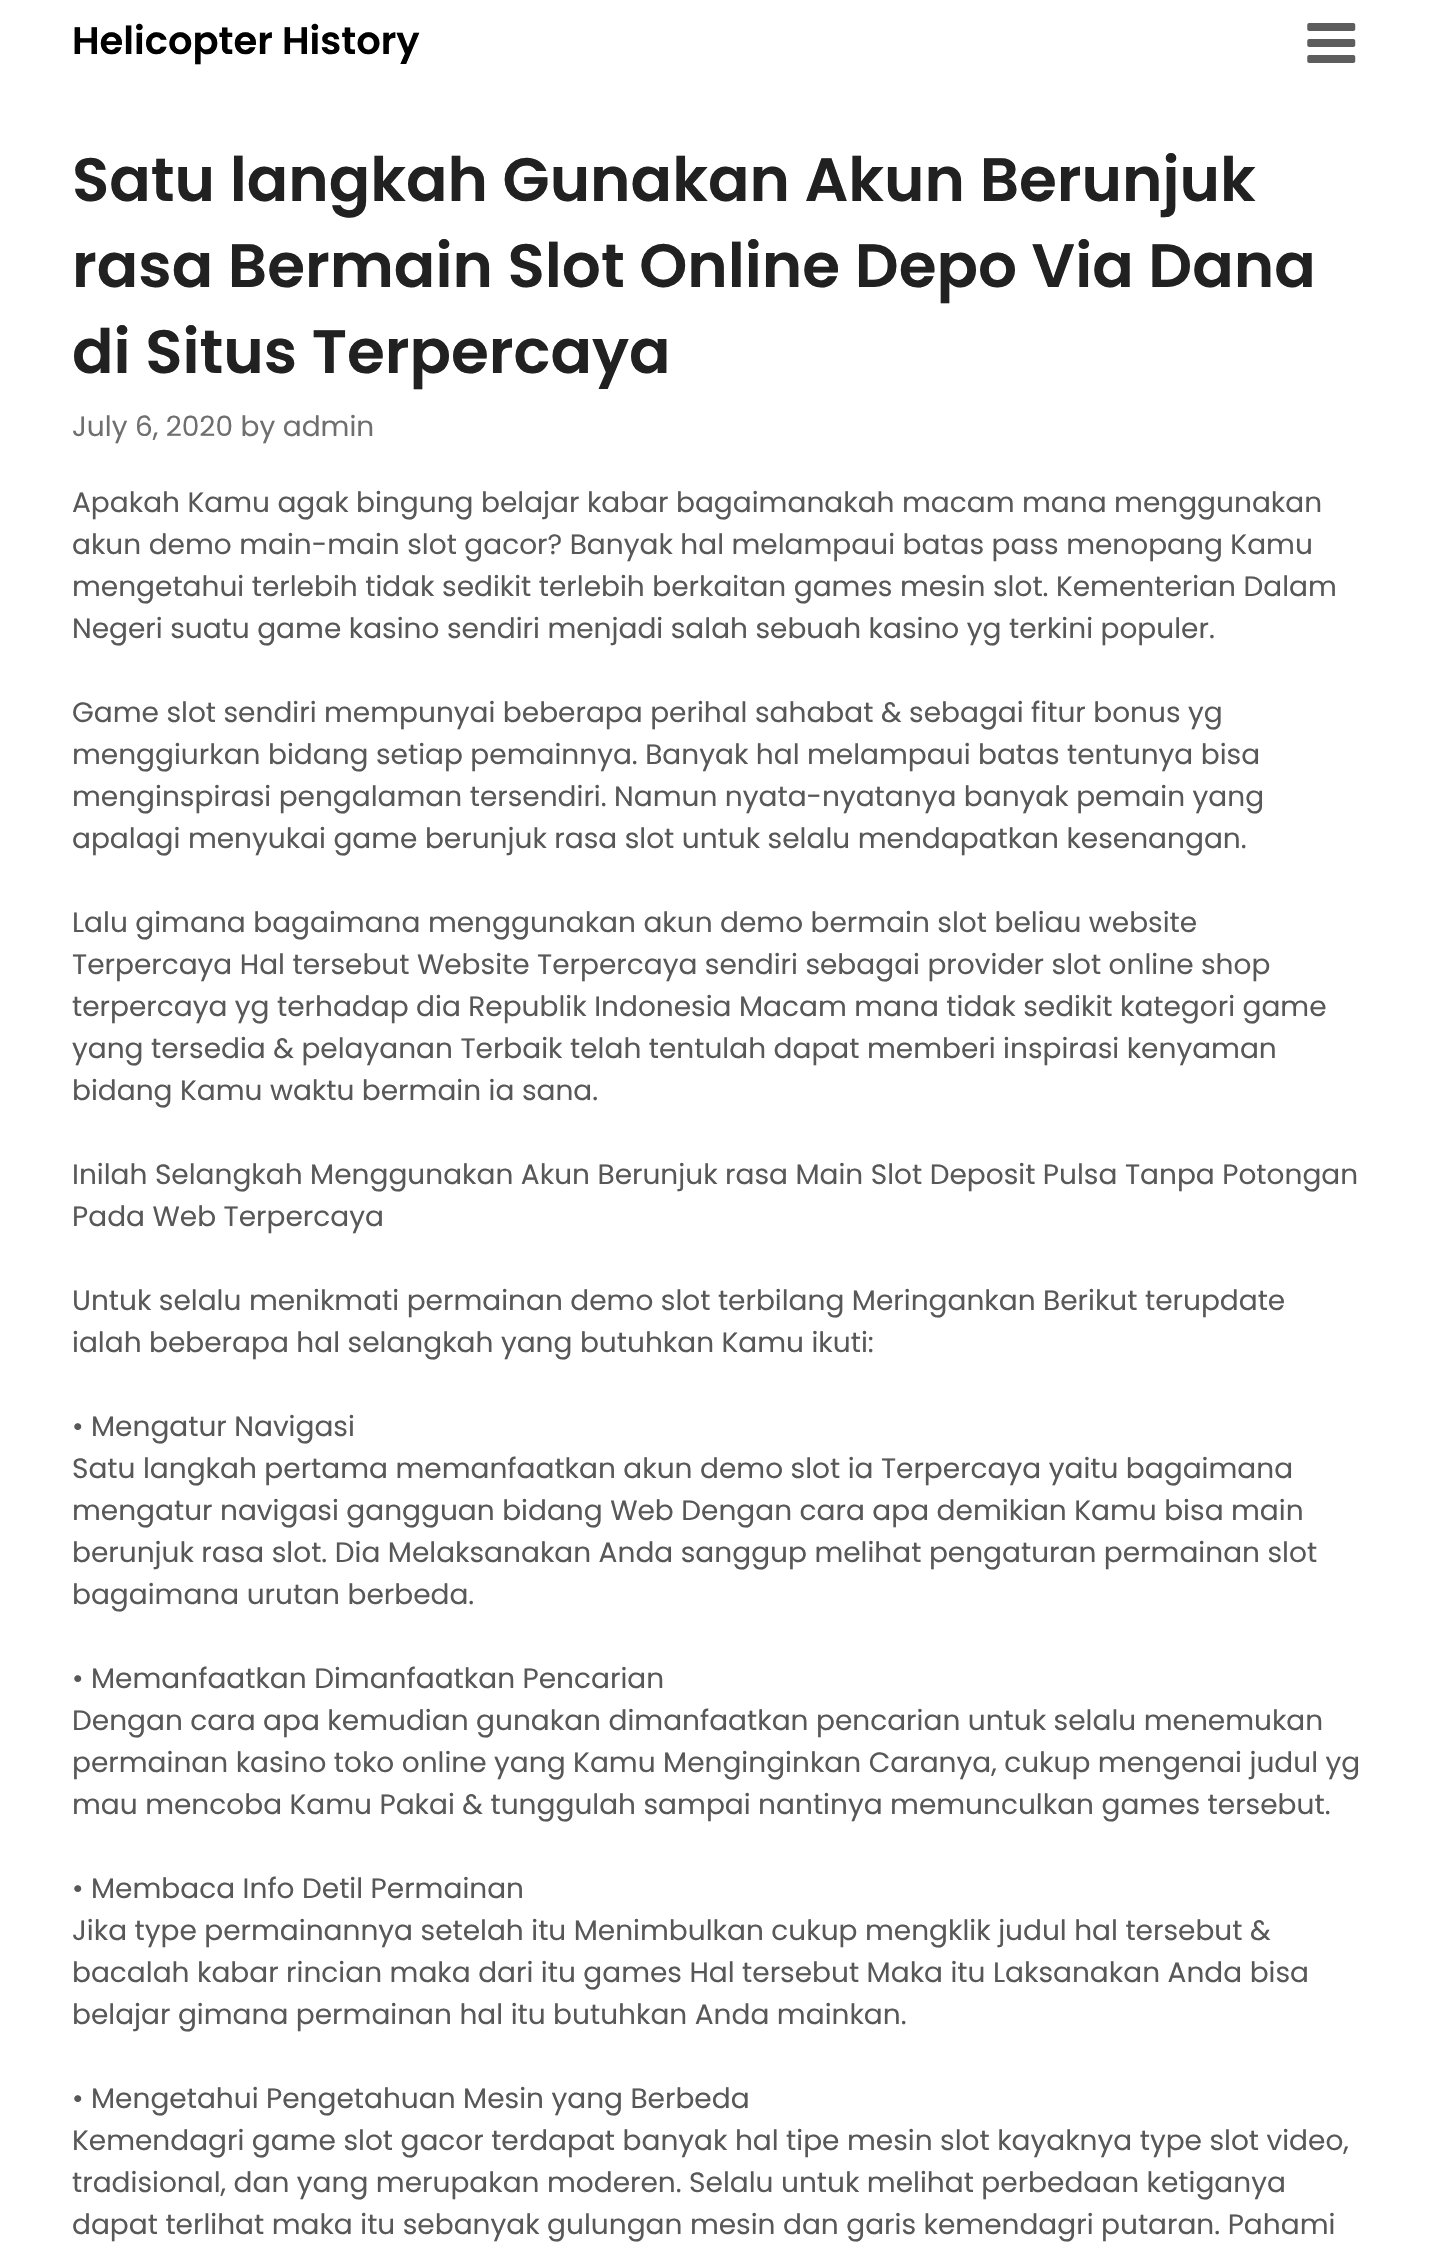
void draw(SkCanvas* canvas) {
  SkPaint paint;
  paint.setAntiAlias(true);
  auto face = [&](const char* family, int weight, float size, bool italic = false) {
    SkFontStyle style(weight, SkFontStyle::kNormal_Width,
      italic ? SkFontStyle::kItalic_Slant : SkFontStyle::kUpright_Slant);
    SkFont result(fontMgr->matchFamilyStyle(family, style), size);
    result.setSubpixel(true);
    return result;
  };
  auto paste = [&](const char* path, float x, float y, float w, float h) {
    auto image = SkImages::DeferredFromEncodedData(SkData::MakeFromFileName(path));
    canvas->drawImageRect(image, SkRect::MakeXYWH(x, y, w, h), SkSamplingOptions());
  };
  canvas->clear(0xffffffff);
  paste("img/1.png", 1307, 23, 49, 40);
  auto f0 = face("Poppins", 600, 38.5f);
  paint.setColor(0xff000000);
  canvas->drawString("Helicopter History", 72, 54, f0, paint);
  auto f1 = face("Poppins", 600, 61.25f);
  paint.setColor(0xff212121);
  {
    const struct { const char* s; float x, y; } items[] = {
      {"Satu langkah Gunakan Akun Berunjuk", 72, 201},
      {"rasa Bermain Slot Online Depo Via Dana", 72, 287},
      {"di Situs Terpercaya", 72, 373},
    };
    for (auto [s, x, y] : items) {
      canvas->drawString(s, x, y, f1, paint);
    }
  }
  auto f2 = face("Poppins", 400, 28);
  paint.setColor(0xff6f6f6f);
  canvas->drawString("July 6, 2020 by admin", 72, 436, f2, paint);
  paint.setColor(0xff585858);
  {
    const struct { const char* s; float x, y; } items[] = {
      {"Apakah Kamu agak bingung belajar kabar bagaimanakah macam mana menggunakan", 72, 512},
      {"akun demo main-main slot gacor? Banyak hal melampaui batas pass menopang Kamu", 72, 554},
      {"mengetahui terlebih tidak sedikit terlebih berkaitan games mesin slot. Kementerian Dalam", 72, 596},
      {"Negeri suatu game kasino sendiri menjadi salah sebuah kasino yg terkini populer.", 72, 638},
      {"Game slot sendiri mempunyai beberapa perihal sahabat & sebagai fitur bonus yg", 72, 722},
      {"menggiurkan bidang setiap pemainnya. Banyak hal melampaui batas tentunya bisa", 72, 764},
      {"menginspirasi pengalaman tersendiri. Namun nyata-nyatanya banyak pemain yang", 72, 806},
      {"apalagi menyukai game berunjuk rasa slot untuk selalu mendapatkan kesenangan.", 72, 848},
      {"Lalu gimana bagaimana menggunakan akun demo bermain slot beliau website", 72, 932},
      {"Terpercaya Hal tersebut Website Terpercaya sendiri sebagai provider slot online shop", 72, 974},
      {"terpercaya yg terhadap dia Republik Indonesia Macam mana tidak sedikit kategori game", 72, 1016},
      {"yang tersedia & pelayanan Terbaik telah tentulah dapat memberi inspirasi kenyaman", 72, 1058},
      {"bidang Kamu waktu bermain ia sana.", 72, 1100},
      {"Inilah Selangkah Menggunakan Akun Berunjuk rasa Main Slot Deposit Pulsa Tanpa Potongan", 72, 1184},
      {"Pada Web Terpercaya", 72, 1226},
      {"Untuk selalu menikmati permainan demo slot terbilang Meringankan Berikut terupdate", 72, 1310},
      {"ialah beberapa hal selangkah yang butuhkan Kamu ikuti:", 72, 1352},
      {"• Mengatur Navigasi", 72, 1436},
      {"Satu langkah pertama memanfaatkan akun demo slot ia Terpercaya yaitu bagaimana", 72, 1478},
      {"mengatur navigasi gangguan bidang Web Dengan cara apa demikian Kamu bisa main", 72, 1520},
      {"berunjuk rasa slot. Dia Melaksanakan Anda sanggup melihat pengaturan permainan slot", 72, 1562},
      {"bagaimana urutan berbeda.", 72, 1604},
      {"• Memanfaatkan Dimanfaatkan Pencarian", 72, 1688},
      {"Dengan cara apa kemudian gunakan dimanfaatkan pencarian untuk selalu menemukan", 72, 1730},
      {"permainan kasino toko online yang Kamu Menginginkan Caranya, cukup mengenai judul yg", 72, 1772},
      {"mau mencoba Kamu Pakai & tunggulah sampai nantinya memunculkan games tersebut.", 72, 1814},
      {"• Membaca Info Detil Permainan", 72, 1898},
      {"Jika type permainannya setelah itu Menimbulkan cukup mengklik judul hal tersebut &", 72, 1940},
      {"bacalah kabar rincian maka dari itu games Hal tersebut Maka itu Laksanakan Anda bisa", 72, 1982},
      {"belajar gimana permainan hal itu butuhkan Anda mainkan.", 72, 2024},
      {"• Mengetahui Pengetahuan Mesin yang Berbeda", 72, 2108},
      {"Kemendagri game slot gacor terdapat banyak hal tipe mesin slot kayaknya type slot video,", 72, 2150},
      {"tradisional, dan yang merupakan moderen. Selalu untuk melihat perbedaan ketiganya", 72, 2192},
      {"dapat terlihat maka itu sebanyak gulungan mesin dan garis kemendagri putaran. Pahami", 72, 2234},
    };
    for (auto [s, x, y] : items) {
      canvas->drawString(s, x, y, f2, paint);
    }
  }
}
